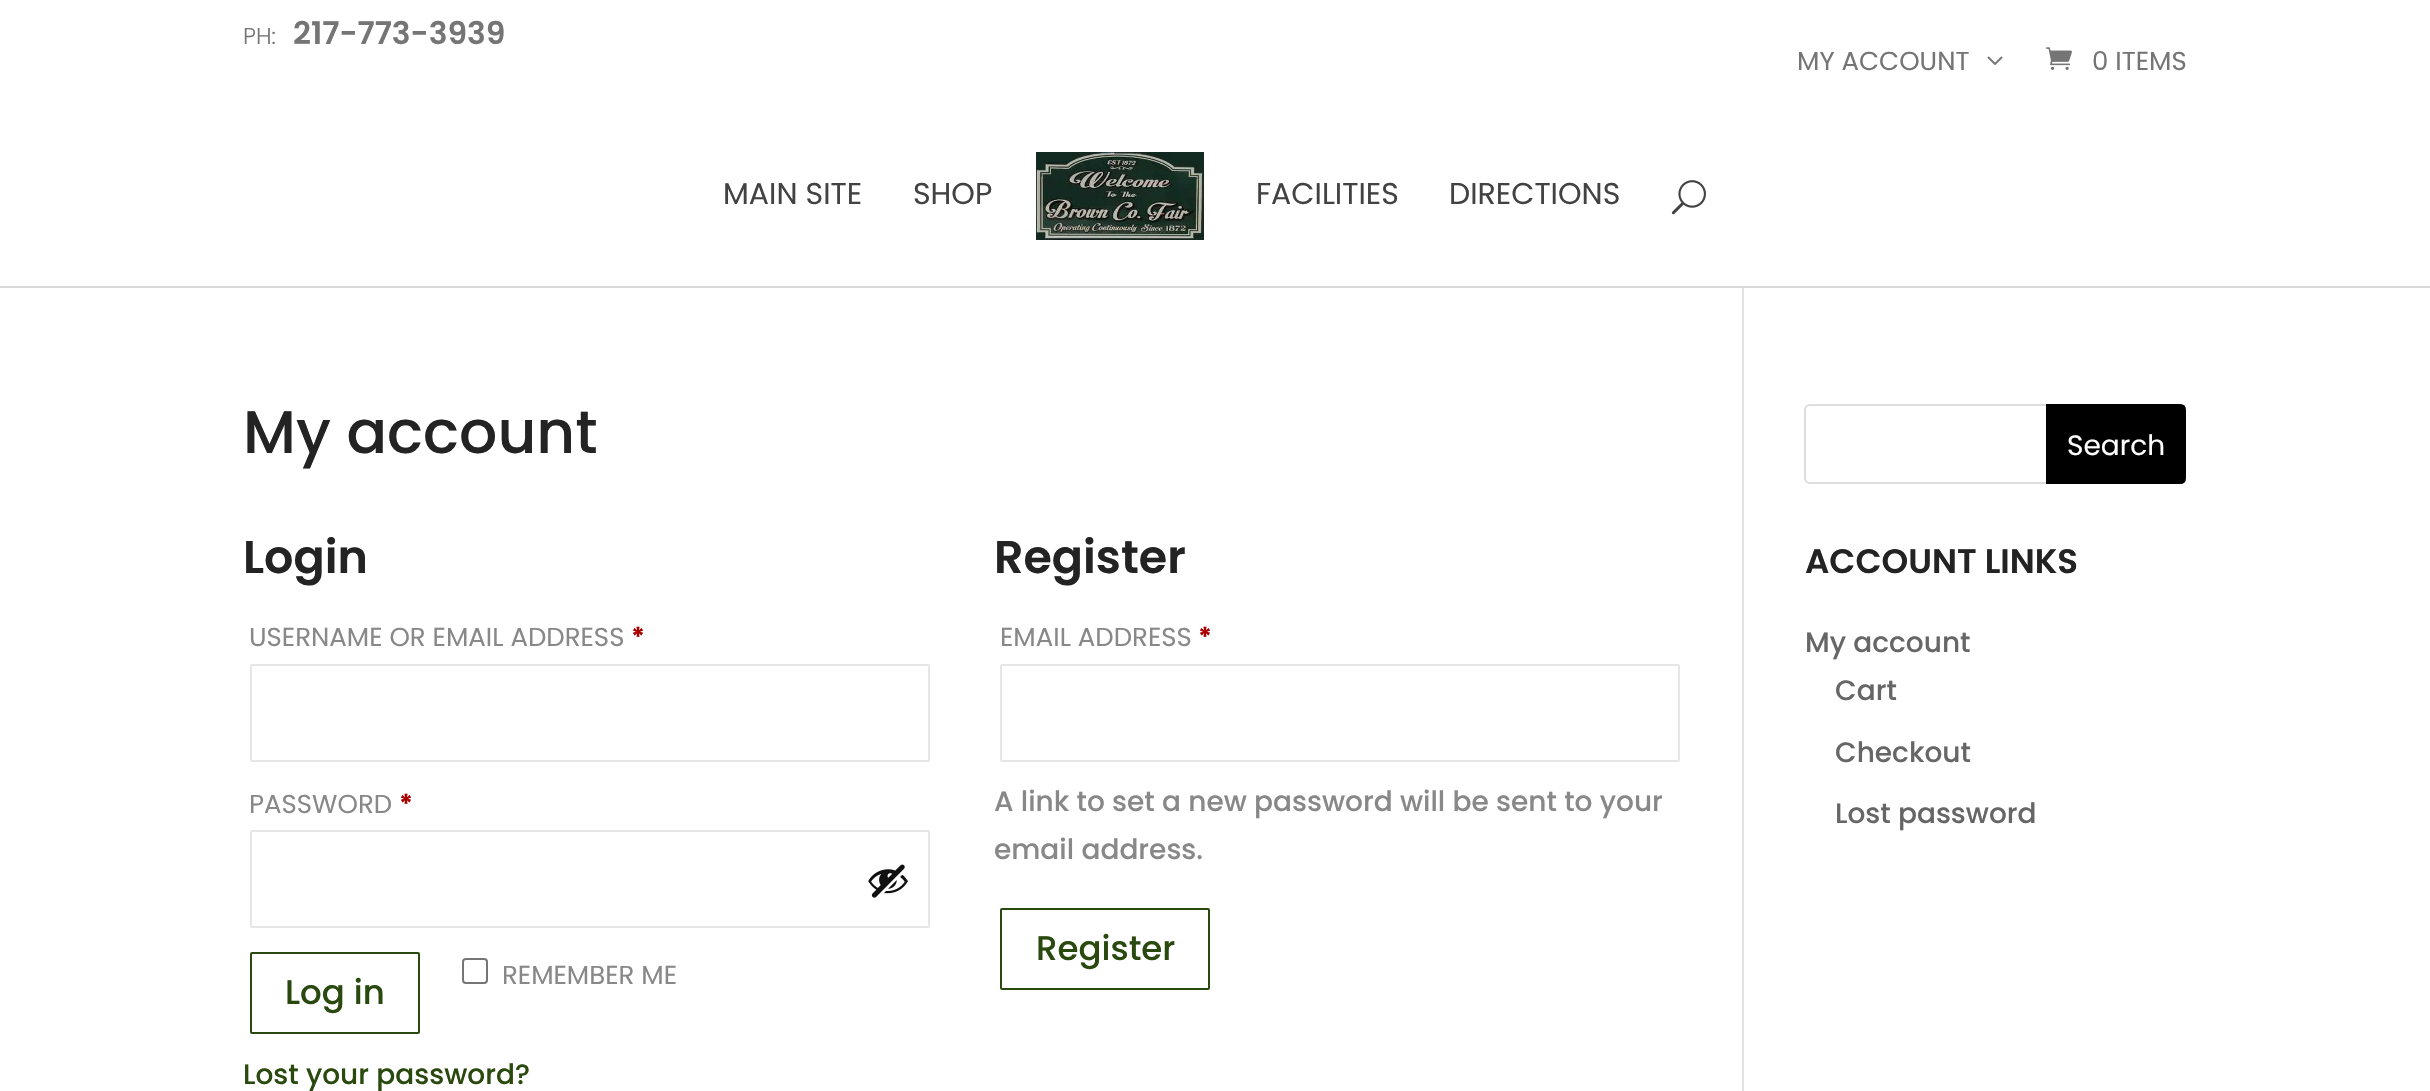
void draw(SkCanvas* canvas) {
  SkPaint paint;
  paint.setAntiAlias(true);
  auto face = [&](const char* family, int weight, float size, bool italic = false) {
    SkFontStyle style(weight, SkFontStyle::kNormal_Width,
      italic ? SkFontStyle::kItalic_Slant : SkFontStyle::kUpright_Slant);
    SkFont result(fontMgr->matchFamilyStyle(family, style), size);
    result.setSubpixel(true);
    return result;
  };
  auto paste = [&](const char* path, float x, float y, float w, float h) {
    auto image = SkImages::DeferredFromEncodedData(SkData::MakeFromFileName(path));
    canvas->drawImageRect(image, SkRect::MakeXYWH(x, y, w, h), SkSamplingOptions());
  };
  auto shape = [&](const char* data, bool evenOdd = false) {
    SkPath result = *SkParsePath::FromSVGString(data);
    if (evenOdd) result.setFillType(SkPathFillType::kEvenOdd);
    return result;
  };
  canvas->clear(0xffffffff);
  paste("img/1.png", 1987, 56, 16, 9);
  paste("img/2.png", 2046, 47, 26, 23);
  paint.setColor(0xffd9d9d9);
  canvas->drawRect(SkRect::MakeXYWH(0, 286, 2430, 2), paint);
  paste("img/3.png", 1036, 152, 168, 88);
  paste("img/4.png", 1671, 180, 35, 35);
  paint.setColor(0xffe2e2e2);
  canvas->drawRect(SkRect::MakeXYWH(1742, 288, 2, 803), paint);
  paint.setStroke(true);
  paint.setStrokeWidth(2);
  paint.setColor(0xffe6e6e6);
  canvas->drawRoundRect(SkRect::MakeXYWH(251, 665, 678, 96), 1, 1, paint);
  canvas->drawRoundRect(SkRect::MakeXYWH(251, 831, 678, 96), 1, 1, paint);
  paste("img/5.png", 868, 864, 40, 34);
  paint.setColor(0xff767676);
  canvas->drawRoundRect(SkRect::MakeXYWH(463, 959, 24, 24), 3, 3, paint);
  paint.setColor(0xff29490f);
  canvas->drawRoundRect(SkRect::MakeXYWH(251, 953, 168, 80), 1, 1, paint);
  paint.setColor(0xffe6e6e6);
  canvas->drawRoundRect(SkRect::MakeXYWH(1001, 665, 678, 96), 1, 1, paint);
  paint.setColor(0xff29490f);
  canvas->drawRoundRect(SkRect::MakeXYWH(1001, 909, 208, 80), 1, 1, paint);
  paint.setColor(0xffdddddd);
  canvas->drawRoundRect(SkRect::MakeXYWH(1805, 405, 380, 78), 5, 5, paint);
  paint.setStroke(false);
  paint.setColor(0xff000000);
  canvas->drawPath(shape("M2047 405H2180C2183 405 2185 407 2185 410V478C2185 481 2183 483 2180 483H2047Z"), paint);
  paint.setStroke(true);
  canvas->drawPath(shape("M2047 405H2180C2183 405 2185 407 2185 410V478C2185 481 2183 483 2180 483H2047Z"), paint);
  auto f0 = face("Poppins", 300, 23);
  paint.setStroke(false);
  paint.setColor(0xff757575);
  canvas->drawString("PH:", 243, 44, f0, paint);
  auto f1 = face("Poppins", 600, 31.25f);
  canvas->drawString("217-773-3939", 293, 44, f1, paint);
  auto f2 = face("Poppins", 400, 26);
  canvas->drawString("MY ACCOUNT", 1797, 70, f2, paint);
  canvas->drawString("0 ITEMS", 2092, 70, f2, paint);
  auto f3 = face("Poppins", 400, 30);
  paint.setColor(0xff424242);
  {
    const struct { const char* s; float x, y; } items[] = {
      {"MAIN SITE", 723, 204},
      {"SHOP", 913, 204},
      {"FACILITIES", 1256, 204},
      {"DIRECTIONS", 1449, 204},
    };
    for (auto [s, x, y] : items) {
      canvas->drawString(s, x, y, f3, paint);
    }
  }
  auto f4 = face("Poppins", 500, 60);
  paint.setColor(0xff232323);
  canvas->drawString("My account", 243, 453, f4, paint);
  auto f5 = face("Poppins", 600, 46);
  canvas->drawString("Login", 243, 573, f5, paint);
  paint.setColor(0xff888888);
  canvas->drawString("USERNAME OR EMAIL ADDRESS", 249, 646, f2, paint);
  auto f6 = face("Poppins", 700, 26);
  paint.setColor(0xffaa0000);
  canvas->drawString("*", 631, 646, f6, paint);
  paint.setColor(0xff888888);
  canvas->drawString("PASSWORD", 249, 813, f2, paint);
  paint.setColor(0xffaa0000);
  canvas->drawString("*", 399, 813, f6, paint);
  paint.setColor(0xff888888);
  canvas->drawString("REMEMBER ME", 502, 984, f2, paint);
  auto f7 = face("Poppins", 500, 34);
  paint.setColor(0xff29490f);
  canvas->drawString("Log in", 285, 1004, f7, paint);
  auto f8 = face("Poppins", 500, 28);
  canvas->drawString("Lost your password?", 243, 1084, f8, paint);
  paint.setColor(0xff232323);
  canvas->drawString("Register", 994, 573, f5, paint);
  paint.setColor(0xff888888);
  canvas->drawString("EMAIL ADDRESS", 1000, 646, f2, paint);
  paint.setColor(0xffaa0000);
  canvas->drawString("*", 1198, 646, f6, paint);
  paint.setColor(0xff888888);
  canvas->drawString("A link to set a new password will be sent to your", 994, 811, f8, paint);
  canvas->drawString("email address.", 994, 859, f8, paint);
  paint.setColor(0xff29490f);
  canvas->drawString("Register", 1036, 960, f7, paint);
  auto f9 = face("Poppins", 400, 28);
  paint.setColor(0xffffffff);
  canvas->drawString("Search", 2067, 455, f9, paint);
  auto f10 = face("Poppins", 600, 34);
  paint.setColor(0xff232323);
  canvas->drawString("ACCOUNT LINKS", 1805, 573, f10, paint);
  paint.setColor(0xff666666);
  {
    const struct { const char* s; float x, y; } items[] = {
      {"My account", 1805, 652},
      {"Cart", 1835, 700},
      {"Checkout", 1835, 762},
      {"Lost password", 1835, 823},
    };
    for (auto [s, x, y] : items) {
      canvas->drawString(s, x, y, f8, paint);
    }
  }
}
